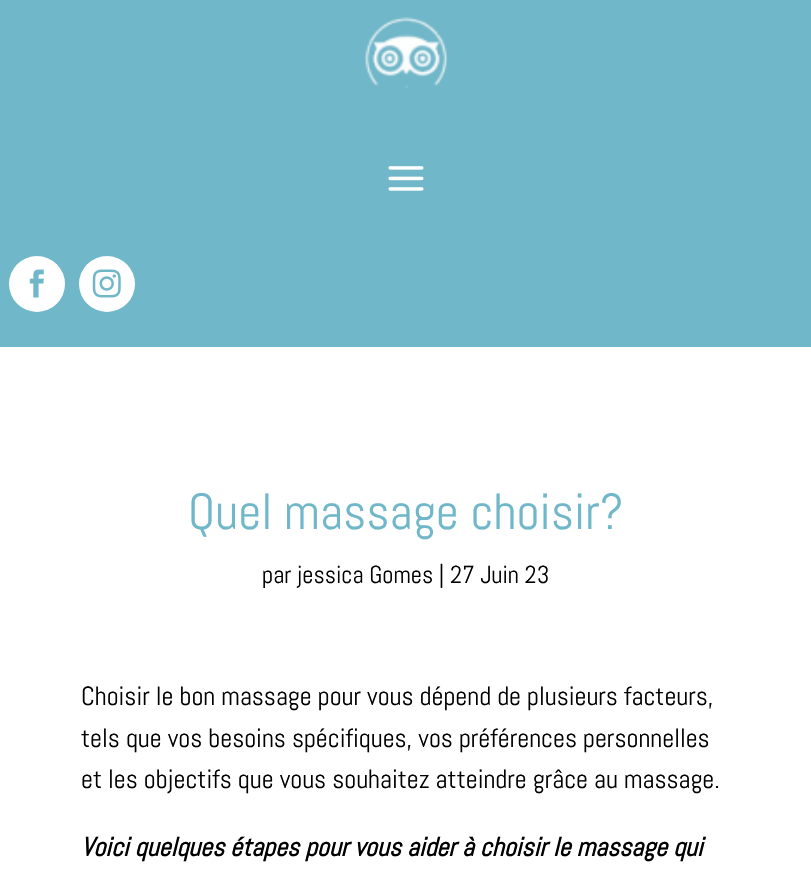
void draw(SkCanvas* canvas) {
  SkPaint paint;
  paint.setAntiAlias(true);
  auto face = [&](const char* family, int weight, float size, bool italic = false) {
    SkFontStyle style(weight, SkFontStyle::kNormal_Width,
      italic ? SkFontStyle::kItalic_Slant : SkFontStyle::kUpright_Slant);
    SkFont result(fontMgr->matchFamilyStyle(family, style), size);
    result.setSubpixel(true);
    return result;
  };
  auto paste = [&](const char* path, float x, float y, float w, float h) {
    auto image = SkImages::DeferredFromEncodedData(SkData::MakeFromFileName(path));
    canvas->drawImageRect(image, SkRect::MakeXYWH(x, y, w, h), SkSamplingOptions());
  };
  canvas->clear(0xffffffff);
  paint.setColor(0xff70b7c9);
  canvas->drawRect(SkRect::MakeXYWH(0, 0, 811, 347), paint);
  paste("img/1.png", 364, 17, 84, 71);
  paste("img/2.png", 388, 166, 36, 25);
  paint.setColor(0xffffffff);
  canvas->drawCircle(37, 284, 28, paint);
  paste("img/3.png", 29, 269, 15, 29);
  canvas->drawCircle(107, 284, 28, paint);
  paste("img/4.png", 92, 269, 29, 29);
  auto f0 = face("Abel", 400, 50.75f);
  paint.setColor(0xff70b7c9);
  canvas->drawString("Quel massage choisir?", 188, 529, f0, paint);
  auto f1 = face("Abel", 400, 24.5f);
  paint.setColor(0xff000000);
  canvas->drawString("par jessica Gomes | 27 Juin 23", 262, 583, f1, paint);
  auto f2 = face("Abel", 400, 26.25f);
  {
    const struct { const char* s; float x, y; } items[] = {
      {"Choisir le bon massage pour vous dépend de plusieurs facteurs,", 81, 705},
      {"tels que vos besoins spécifiques, vos préférences personnelles", 81, 747},
      {"et les objectifs que vous souhaitez atteindre grâce au massage.", 81, 788},
    };
    for (auto [s, x, y] : items) {
      canvas->drawString(s, x, y, f2, paint);
    }
  }
  auto f3 = face("Abel", 700, 26.25f, true);
  canvas->drawString("Voici quelques étapes pour vous aider à choisir le massage qui", 81, 856, f3, paint);
}
